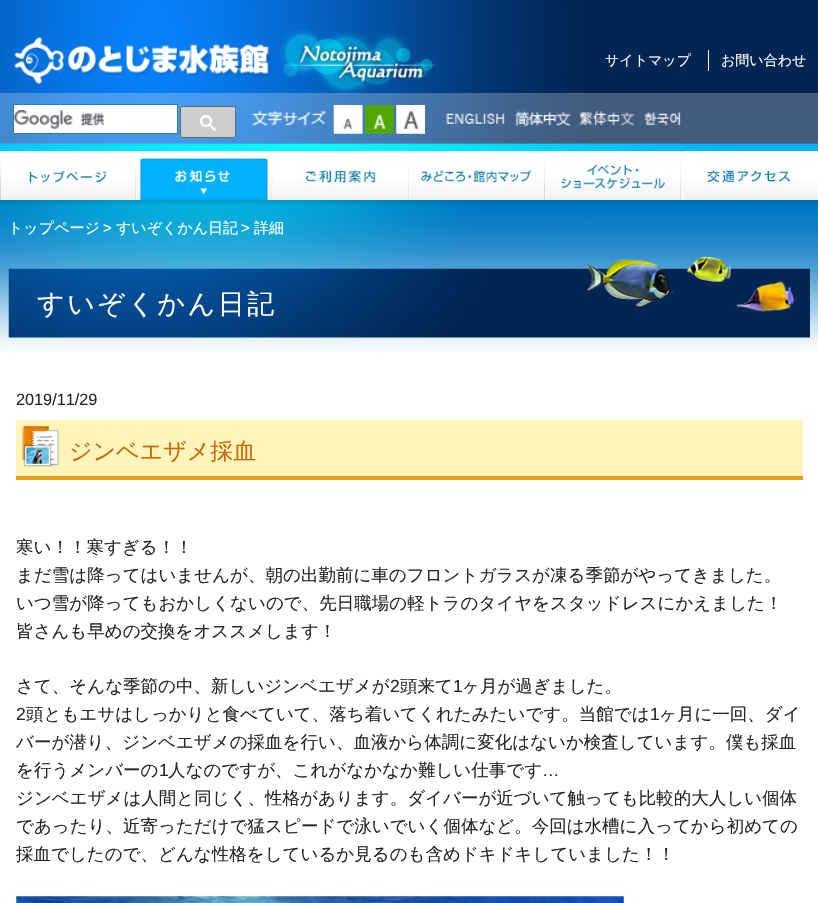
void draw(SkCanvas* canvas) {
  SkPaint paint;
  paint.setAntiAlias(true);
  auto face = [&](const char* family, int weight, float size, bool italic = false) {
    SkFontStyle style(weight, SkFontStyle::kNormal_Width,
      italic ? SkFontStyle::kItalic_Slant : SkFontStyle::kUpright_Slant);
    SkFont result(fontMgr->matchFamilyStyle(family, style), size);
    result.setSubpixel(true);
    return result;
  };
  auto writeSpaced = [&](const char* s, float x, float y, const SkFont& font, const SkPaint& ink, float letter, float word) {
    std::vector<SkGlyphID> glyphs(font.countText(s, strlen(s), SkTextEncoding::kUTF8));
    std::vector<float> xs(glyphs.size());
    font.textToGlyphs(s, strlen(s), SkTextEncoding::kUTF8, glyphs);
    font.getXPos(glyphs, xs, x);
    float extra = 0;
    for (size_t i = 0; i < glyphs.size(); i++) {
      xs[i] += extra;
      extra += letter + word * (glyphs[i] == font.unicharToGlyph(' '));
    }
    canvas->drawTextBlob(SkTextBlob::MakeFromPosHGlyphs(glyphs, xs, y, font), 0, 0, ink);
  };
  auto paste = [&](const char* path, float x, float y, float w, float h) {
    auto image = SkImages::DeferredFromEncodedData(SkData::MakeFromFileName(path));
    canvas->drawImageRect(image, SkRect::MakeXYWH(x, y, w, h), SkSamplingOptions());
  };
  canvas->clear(0xffffffff);
  paste("img/1.png", 0, 0, 818, 152);
  paint.setColor(0x40ffffff);
  canvas->drawRect(SkRect::MakeXYWH(0, 93, 818, 51), paint);
  paste("img/2.png", 14, 29, 423, 66);
  paint.setColor(0xffffffff);
  canvas->drawRect(SkRect::MakeXYWH(708, 50, 1, 21), paint);
  canvas->drawRect(SkRect::MakeXYWH(14, 105, 163, 28), paint);
  paste("img/3.png", 14, 110, 91, 19);
  paint.setStroke(true);
  paint.setStrokeWidth(1);
  paint.setColor(0xff2b7da8);
  canvas->drawRect(SkRect::MakeXYWH(13.5f, 104.5f, 164, 29), paint);
  paint.setStroke(false);
  paint.setColor(0xffcecece);
  canvas->drawRoundRect(SkRect::MakeXYWH(180.5f, 106.5f, 55, 31), 2, 2, paint);
  paint.setStroke(true);
  paint.setColor(0xff666666);
  canvas->drawRoundRect(SkRect::MakeXYWH(180.5f, 106.5f, 55, 31), 2, 2, paint);
  paste("img/4.png", 200, 115, 16, 16);
  paste("img/5.png", 252, 111, 75, 15);
  paste("img/6.png", 333, 105, 30, 29);
  paste("img/7.png", 365, 105, 29, 29);
  paste("img/8.png", 396, 105, 29, 29);
  paste("img/9.png", 446, 113, 59, 11);
  paste("img/10.png", 515, 111, 56, 16);
  paste("img/11.png", 578, 111, 56, 15);
  paste("img/12.png", 644, 112, 37, 14);
  paste("img/13.png", 0, 151, 137, 49);
  paste("img/14.png", 136, 151, 137, 49);
  paste("img/15.png", 272, 151, 137, 49);
  paste("img/16.png", 408, 151, 137, 49);
  paste("img/17.png", 545, 151, 137, 49);
  paste("img/18.png", 682, 151, 136, 49);
  paste("img/19.png", 0, 200, 818, 151);
  paste("img/20.png", 8, 268, 802, 70);
  paste("img/21.png", 586, 256, 210, 56);
  paint.setStroke(false);
  paint.setColor(0xfffff5bb);
  canvas->drawRect(SkRect::MakeXYWH(16, 420, 787, 56), paint);
  paste("img/22.png", 22, 426, 37, 41);
  paint.setColor(0xffe59f1c);
  canvas->drawRect(SkRect::MakeXYWH(16, 476, 787, 4), paint);
  paste("img/23.png", 16, 896, 608, 7);
  auto f0 = face("WenQuanYi Zen Hei", 500, 14);
  paint.setColor(0xffffffff);
  canvas->drawString("サイトマップ", 605, 65, f0, paint);
  canvas->drawString("お問い合わせ", 721, 65, f0, paint);
  auto f1 = face("WenQuanYi Zen Hei", 500, 15);
  canvas->drawString("トップページ", 8, 233, f1, paint);
  auto f2 = face("Liberation Sans", 400, 15);
  canvas->drawString(">", 103, 233, f2, paint);
  canvas->drawString("すいぞくかん日記", 116, 233, f1, paint);
  canvas->drawString(">", 241, 233, f2, paint);
  canvas->drawString("詳細", 254, 233, f1, paint);
  auto f3 = face("WenQuanYi Zen Hei", 500, 27);
  writeSpaced("すいぞくかん日記", 37, 313, f3, paint, 2.5f, 0);
  auto f4 = face("Liberation Sans", 400, 16.25f);
  paint.setColor(0xff262626);
  canvas->drawString("2019/11/29", 16, 405, f4, paint);
  auto f5 = face("WenQuanYi Zen Hei", 500, 23);
  paint.setColor(0xffcb6500);
  canvas->drawString("ジンベエザメ採血", 69, 459, f5, paint);
  auto f6 = face("WenQuanYi Zen Hei", 500, 17.5f);
  paint.setColor(0xff262626);
  {
    const struct { const char* s; float x, y; } items[] = {
      {"寒い！！寒すぎる！！", 16, 553},
      {"まだ雪は降ってはいませんが、朝の出勤前に車のフロントガラスが凍る季節がやってきました。", 16, 581},
      {"いつ雪が降ってもおかしくないので、先日職場の軽トラのタイヤをスタッドレスにかえました！", 16, 609},
      {"皆さんも早めの交換をオススメします！", 16, 637},
      {"さて、そんな季節の中、新しいジンベエザメが", 16, 692},
    };
    for (auto [s, x, y] : items) {
      canvas->drawString(s, x, y, f6, paint);
    }
  }
  auto f7 = face("Liberation Sans", 400, 17.5f);
  canvas->drawString("2", 390, 692, f7, paint);
  canvas->drawString("頭来て", 400, 692, f6, paint);
  canvas->drawString("1", 453, 692, f7, paint);
  canvas->drawString("ヶ月が過ぎました。", 462, 692, f6, paint);
  canvas->drawString("2", 16, 720, f7, paint);
  canvas->drawString("頭ともエサはしっかりと食べていて、落ち着いてくれたみたいです。当館では", 26, 720, f6, paint);
  canvas->drawString("1", 650, 720, f7, paint);
  {
    const struct { const char* s; float x, y; } items[] = {
      {"ヶ月に一回、ダイ", 659, 720},
      {"バーが潜り、ジンベエザメの採血を行い、血液から体調に変化はないか検査しています。僕も採血", 16, 748},
      {"を行うメンバーの", 16, 776},
    };
    for (auto [s, x, y] : items) {
      canvas->drawString(s, x, y, f6, paint);
    }
  }
  canvas->drawString("1", 159, 776, f7, paint);
  canvas->drawString("人なのですが、これがなかなか難しい仕事です", 168, 776, f6, paint);
  canvas->drawString("…", 542, 776, f7, paint);
  {
    const struct { const char* s; float x, y; } items[] = {
      {"ジンベエザメは人間と同じく、性格があります。ダイバーが近づいて触っても比較的大人しい個体", 16, 804},
      {"であったり、近寄っただけで猛スピードで泳いでいく個体など。今回は水槽に入ってから初めての", 16, 832},
      {"採血でしたので、どんな性格をしているか見るのも含めドキドキしていました！！", 16, 860},
    };
    for (auto [s, x, y] : items) {
      canvas->drawString(s, x, y, f6, paint);
    }
  }
}
